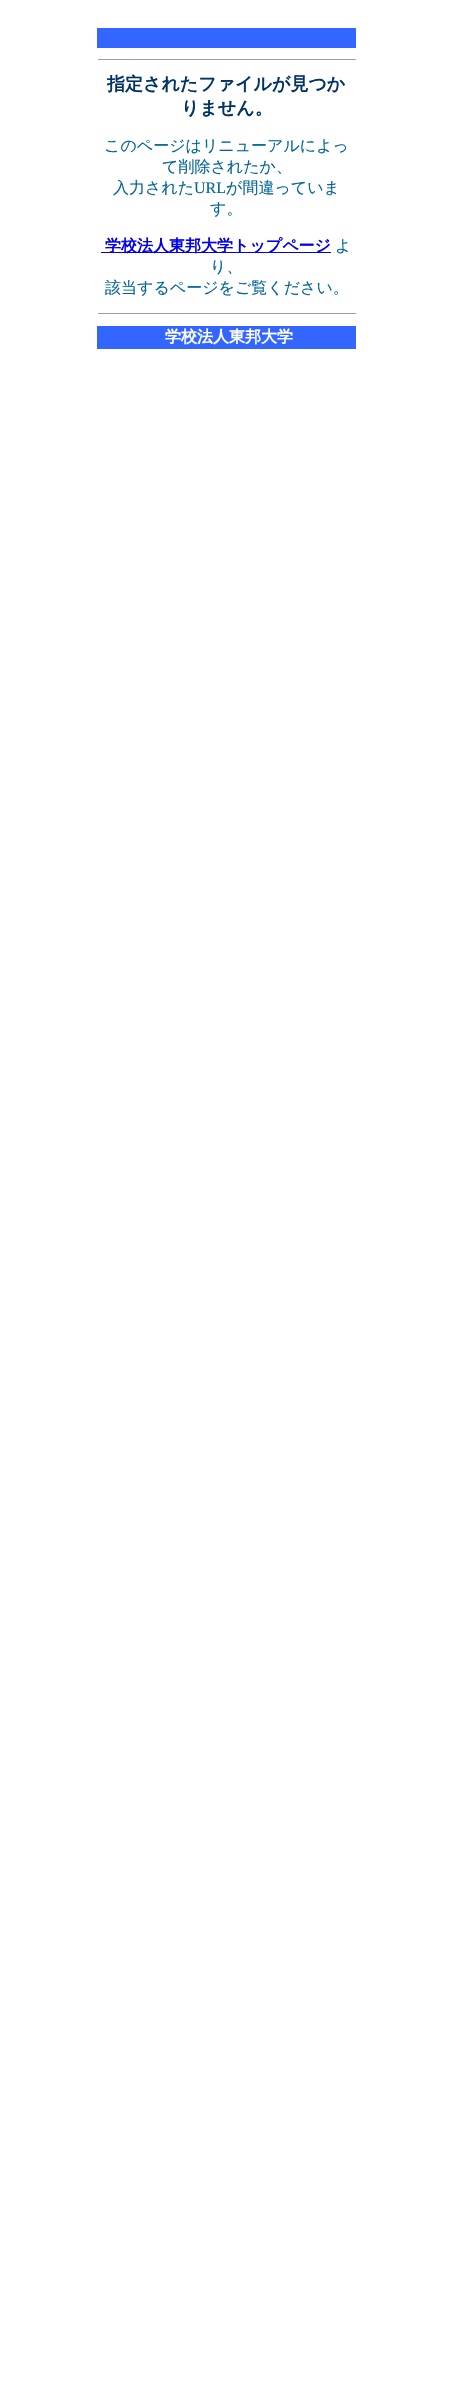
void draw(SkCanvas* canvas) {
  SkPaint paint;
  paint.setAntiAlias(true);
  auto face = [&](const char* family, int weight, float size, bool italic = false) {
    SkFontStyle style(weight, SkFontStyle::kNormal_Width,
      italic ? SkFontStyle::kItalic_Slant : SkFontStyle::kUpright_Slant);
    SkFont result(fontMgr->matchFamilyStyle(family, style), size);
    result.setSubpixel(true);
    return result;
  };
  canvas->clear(0xffffffff);
  {
    const struct { float x, y, w, h; SkColor color; } items[] = {
      {97, 28, 259, 20, 0xff3366ff},
      {98, 59, 259, 1, 0xff9f9f9f},
      {356, 59, 1, 1, 0xffeeeeee},
      {101, 252, 230, 1, 0xff0000ee},
      {98, 313, 259, 1, 0xff9f9f9f},
      {356, 313, 1, 1, 0xffeeeeee},
      {97, 326, 259, 23, 0xff3366ff},
    };
    for (auto [x, y, w, h, color] : items) {
      paint.setColor(color);
      canvas->drawRect(SkRect::MakeXYWH(x, y, w, h), paint);
    }
  }
  auto f0 = face("WenQuanYi Zen Hei", 700, 18);
  paint.setColor(0xff003366);
  canvas->drawString("指定されたファイルが見つか", 107, 90, f0, paint);
  canvas->drawString("りません。", 181, 114, f0, paint);
  auto f1 = face("WenQuanYi Zen Hei", 500, 16);
  paint.setColor(0xff006699);
  {
    const struct { const char* s; float x, y; } items[] = {
      {"このページはリニューアルによっ", 104, 151},
      {"て削除されたか、", 162, 172},
      {"入力された", 113, 193},
    };
    for (auto [s, x, y] : items) {
      canvas->drawString(s, x, y, f1, paint);
    }
  }
  auto f2 = face("Liberation Serif", 400, 16);
  canvas->drawString("URL", 194, 193, f2, paint);
  canvas->drawString("が間違っていま", 226, 193, f1, paint);
  canvas->drawString("す。", 210, 214, f1, paint);
  auto f3 = face("WenQuanYi Zen Hei", 700, 16);
  paint.setColor(0xff0000ee);
  canvas->drawString("学校法人東邦大学トップページ", 105, 251, f3, paint);
  paint.setColor(0xff006699);
  {
    const struct { const char* s; float x, y; } items[] = {
      {"よ", 335, 251},
      {"り、", 210, 272},
      {"該当するページをご覧ください。", 105, 293},
    };
    for (auto [s, x, y] : items) {
      canvas->drawString(s, x, y, f1, paint);
    }
  }
  paint.setColor(0xffffffff);
  canvas->drawString("学校法人東邦大学", 165, 342, f3, paint);
}
